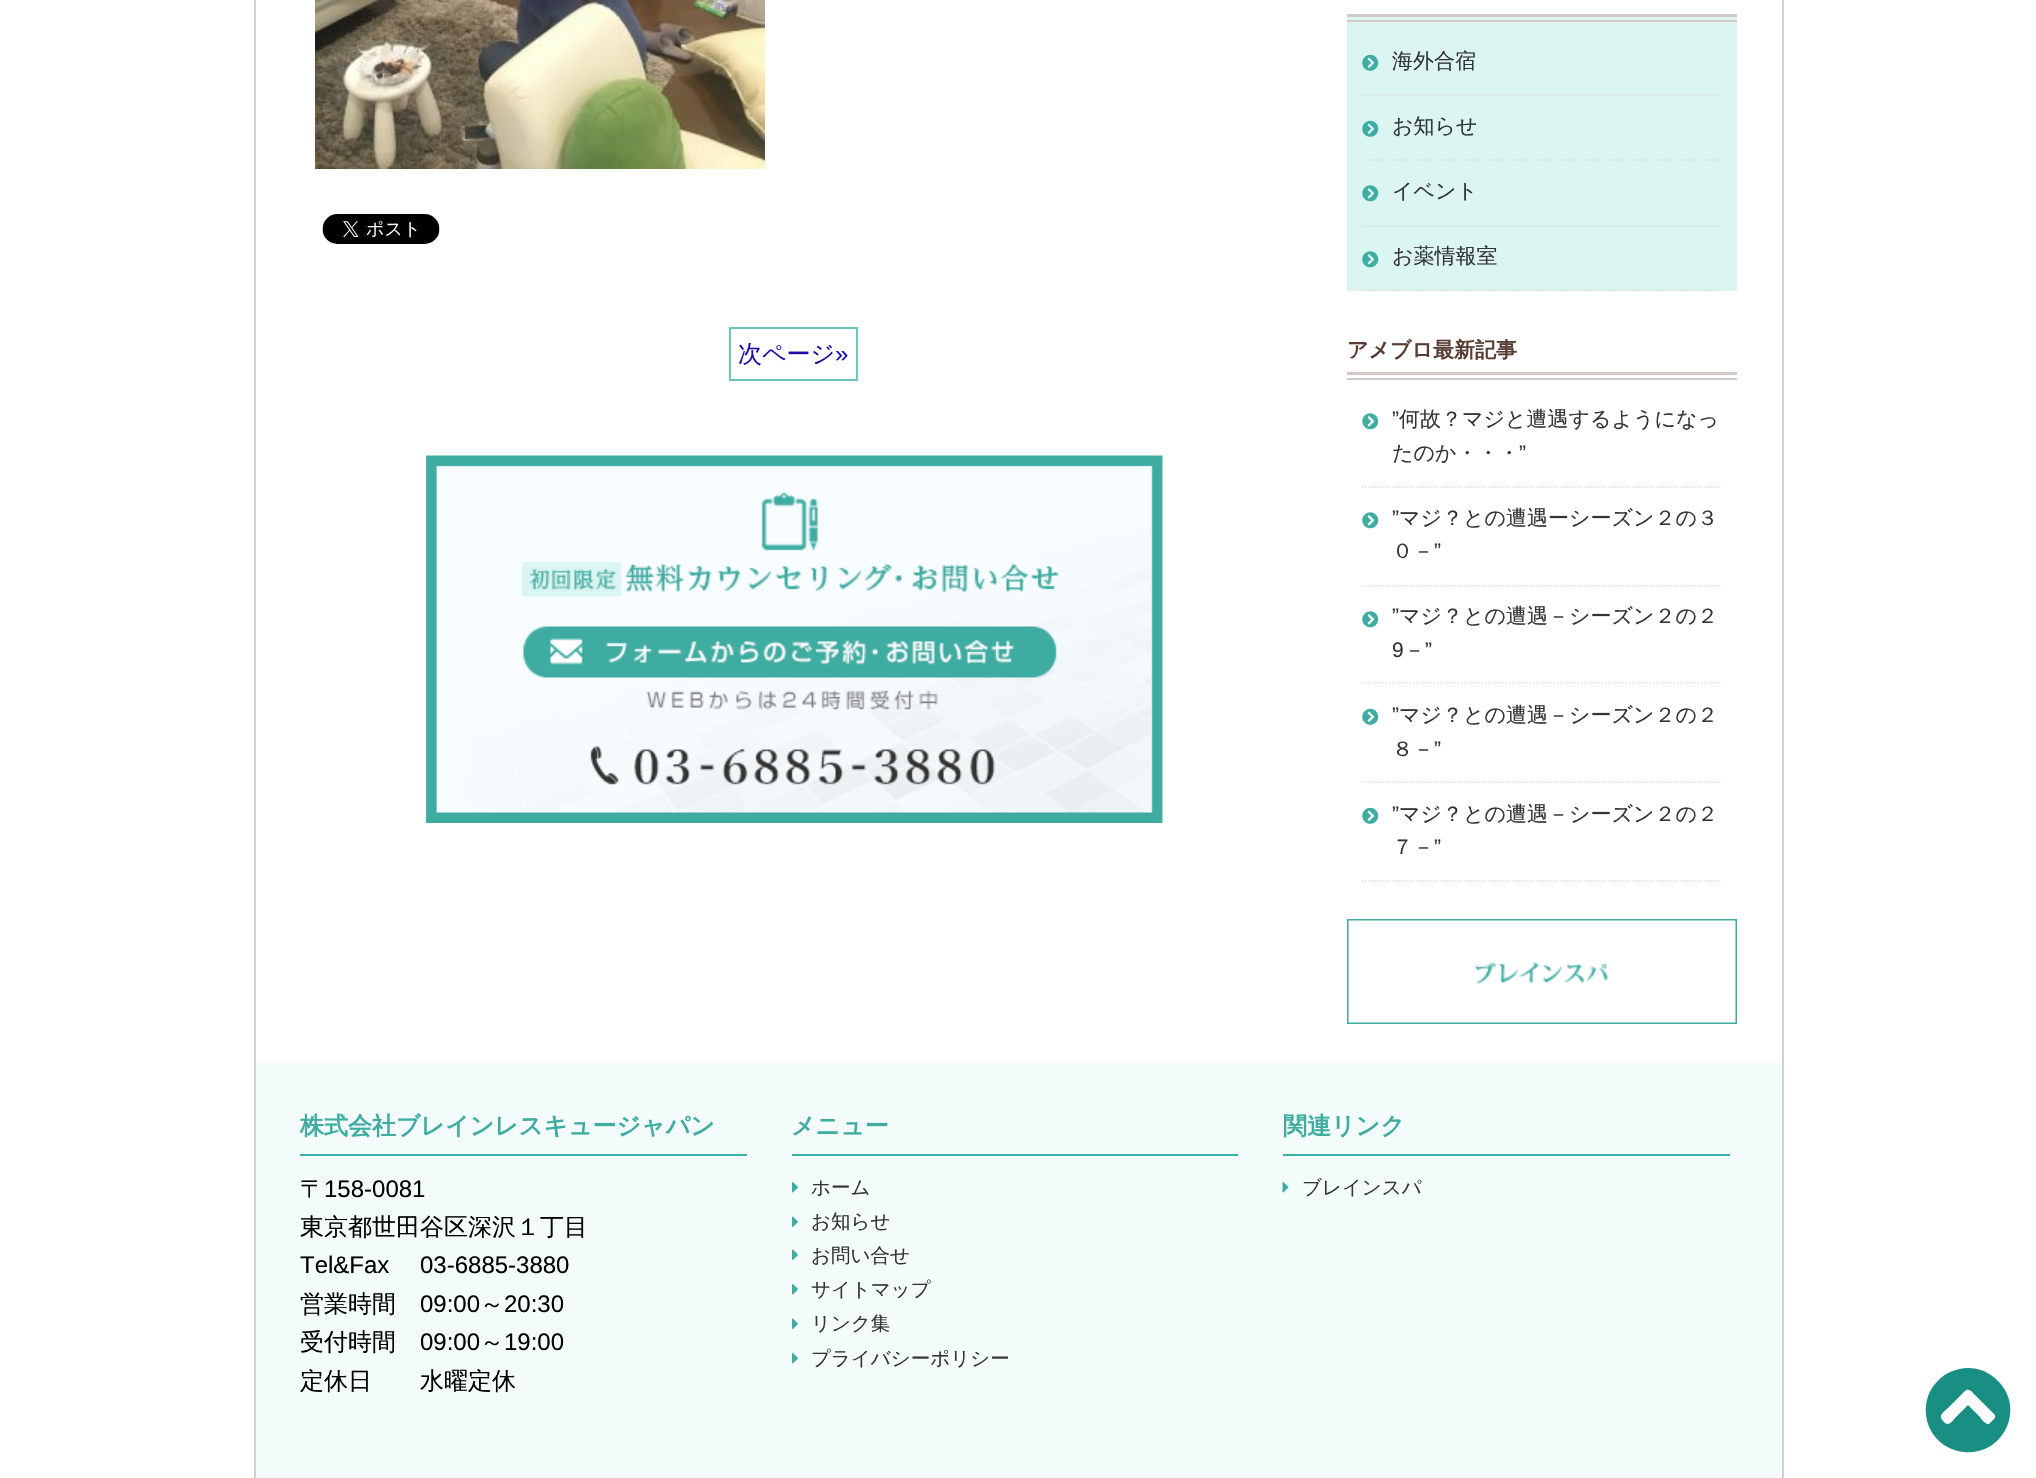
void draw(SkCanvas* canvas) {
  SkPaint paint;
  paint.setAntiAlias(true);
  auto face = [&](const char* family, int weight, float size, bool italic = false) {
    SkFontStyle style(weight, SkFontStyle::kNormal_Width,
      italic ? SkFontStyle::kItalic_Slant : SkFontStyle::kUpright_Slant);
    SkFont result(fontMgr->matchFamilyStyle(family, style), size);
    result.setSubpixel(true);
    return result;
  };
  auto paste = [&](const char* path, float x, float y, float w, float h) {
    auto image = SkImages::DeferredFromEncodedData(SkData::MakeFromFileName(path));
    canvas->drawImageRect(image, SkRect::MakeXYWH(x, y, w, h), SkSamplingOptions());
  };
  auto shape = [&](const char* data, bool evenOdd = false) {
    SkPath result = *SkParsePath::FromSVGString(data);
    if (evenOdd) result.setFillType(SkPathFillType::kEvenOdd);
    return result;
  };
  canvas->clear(0xffffffff);
  paint.setColor(0xffd1d0d6);
  canvas->drawRect(SkRect::MakeXYWH(1782, 0, 2, 1478), paint);
  canvas->drawRect(SkRect::MakeXYWH(254, 0, 2, 1478), paint);
  paste("img/1.png", 315, 0, 450, 169);
  paste("img/2.png", 322, 214, 118, 30);
  paint.setStroke(true);
  paint.setStrokeWidth(2);
  paint.setColor(0xff68c7bf);
  canvas->drawRect(SkRect::MakeXYWH(730, 328, 127, 52), paint);
  paste("img/3.png", 426, 455, 737, 368);
  paint.setStroke(false);
  {
    const struct { float x, y, w, h; SkColor color; } items[] = {
      {1347, 17, 390, 274, 0xffdbf5f3},
      {1347, 14, 390, 3, 0xffd3c9c6},
      {1347, 20, 390, 2, 0xffd3c9c6},
    };
    for (auto [x, y, w, h, color] : items) {
      paint.setColor(color);
      canvas->drawRect(SkRect::MakeXYWH(x, y, w, h), paint);
    }
  }
  paint.setStroke(true);
  paint.setStrokeWidth(1.5f);
  paint.setColor(0xffdddddd);
  paint.setPathEffect(SkDashPathEffect::Make({{1.5f, 1.5f}}, 0));
  canvas->drawPath(shape("M1362 95H1722"), paint);
  paint.setPathEffect(nullptr);
  paste("img/4.png", 1362, 54, 17, 17);
  paint.setPathEffect(SkDashPathEffect::Make({{1.5f, 1.5f}}, 0));
  canvas->drawPath(shape("M1362 160H1722"), paint);
  paint.setPathEffect(nullptr);
  paste("img/4.png", 1362, 120, 17, 17);
  paint.setPathEffect(SkDashPathEffect::Make({{1.5f, 1.5f}}, 0));
  canvas->drawPath(shape("M1362 226H1722"), paint);
  paint.setPathEffect(nullptr);
  paste("img/5.png", 1362, 185, 17, 17);
  paint.setPathEffect(SkDashPathEffect::Make({{1.5f, 1.5f}}, 0));
  canvas->drawPath(shape("M1362 290H1722"), paint);
  paint.setPathEffect(nullptr);
  paste("img/5.png", 1362, 251, 17, 17);
  paint.setStroke(false);
  paint.setColor(0xffd3c9c6);
  canvas->drawRect(SkRect::MakeXYWH(1347, 372, 390, 3), paint);
  canvas->drawRect(SkRect::MakeXYWH(1347, 378, 390, 2), paint);
  paint.setStroke(true);
  paint.setColor(0xffdddddd);
  paint.setPathEffect(SkDashPathEffect::Make({{1.5f, 1.5f}}, 0));
  canvas->drawPath(shape("M1362 487H1722"), paint);
  paint.setPathEffect(nullptr);
  paste("img/6.png", 1362, 413, 17, 17);
  paint.setPathEffect(SkDashPathEffect::Make({{1.5f, 1.5f}}, 0));
  canvas->drawPath(shape("M1362 586H1722"), paint);
  paint.setPathEffect(nullptr);
  paste("img/6.png", 1362, 512, 17, 17);
  paint.setPathEffect(SkDashPathEffect::Make({{1.5f, 1.5f}}, 0));
  canvas->drawPath(shape("M1362 683H1722"), paint);
  paint.setPathEffect(nullptr);
  paste("img/6.png", 1362, 611, 17, 17);
  paint.setPathEffect(SkDashPathEffect::Make({{1.5f, 1.5f}}, 0));
  canvas->drawPath(shape("M1362 782H1722"), paint);
  paint.setPathEffect(nullptr);
  paste("img/7.png", 1362, 708, 17, 17);
  paint.setPathEffect(SkDashPathEffect::Make({{1.5f, 1.5f}}, 0));
  canvas->drawPath(shape("M1362 881H1722"), paint);
  paint.setPathEffect(nullptr);
  paste("img/7.png", 1362, 807, 17, 17);
  paste("img/8.png", 1347, 919, 390, 105);
  paint.setStroke(false);
  {
    const struct { float x, y, w, h; SkColor color; } items[] = {
      {256, 1062, 1526, 416, 0xfff4fcfb},
      {300, 1154, 447, 2, 0xff36b2a6},
      {792, 1154, 446, 2, 0xff36b2a6},
    };
    for (auto [x, y, w, h, color] : items) {
      paint.setColor(color);
      canvas->drawRect(SkRect::MakeXYWH(x, y, w, h), paint);
    }
  }
  paste("img/9.png", 792, 1182, 6, 11);
  paste("img/10.png", 792, 1216, 6, 11);
  paste("img/10.png", 792, 1249, 6, 11);
  paste("img/9.png", 792, 1284, 6, 11);
  paste("img/10.png", 792, 1318, 6, 11);
  paste("img/9.png", 792, 1353, 6, 11);
  canvas->drawRect(SkRect::MakeXYWH(1283, 1154, 447, 2), paint);
  paste("img/11.png", 1282, 1182, 7, 11);
  paint.setColor(0xff198e83);
  canvas->drawPath(shape("M1938 1440C1931 1433 1927 1424 1926 1415C1922 1375 1970 1352 1998 1381C2026 1409 2003 1456 1964 1452C1954 1451 1945 1447 1938 1440ZM1965 1391L1950 1406C1942 1414 1937 1415 1945 1423C1949 1427 1954 1419 1956 1417L1968 1405L1980 1417C1981 1419 1986 1425 1989 1424L1992 1421C1998 1416 1995 1415 1990 1410L1975 1395C1973 1393 1969 1387 1965 1391Z"), paint);
  auto f0 = face("WenQuanYi Zen Hei", 500, 24);
  paint.setColor(0xff1a0dab);
  canvas->drawString("次ページ", 738, 362, f0, paint);
  auto f1 = face("Liberation Sans", 400, 24);
  canvas->drawString("»", 835, 362, f1, paint);
  auto f2 = face("WenQuanYi Zen Hei", 500, 21);
  paint.setColor(0xff333333);
  {
    const struct { const char* s; float x, y; } items[] = {
      {"海外合宿", 1392, 68},
      {"お知らせ", 1392, 133},
      {"イベント", 1392, 198},
      {"お薬情報室", 1392, 263},
    };
    for (auto [s, x, y] : items) {
      canvas->drawString(s, x, y, f2, paint);
    }
  }
  auto f3 = face("WenQuanYi Zen Hei", 700, 21);
  paint.setColor(0xff583c32);
  canvas->drawString("アメブロ最新記事", 1347, 357, f3, paint);
  auto f4 = face("Liberation Sans", 400, 21);
  paint.setColor(0xff333333);
  canvas->drawString("”", 1392, 426, f4, paint);
  canvas->drawString("何故？マジと遭遇するようになっ", 1399, 426, f2, paint);
  canvas->drawString("たのか・・・", 1392, 460, f2, paint);
  canvas->drawString("”", 1519, 460, f4, paint);
  canvas->drawString("”", 1392, 525, f4, paint);
  canvas->drawString("マジ？との遭遇ーシーズン２の３", 1399, 525, f2, paint);
  canvas->drawString("０－", 1392, 558, f2, paint);
  canvas->drawString("”", 1434, 558, f4, paint);
  canvas->drawString("”", 1392, 623, f4, paint);
  canvas->drawString("マジ？との遭遇－シーズン２の２", 1399, 623, f2, paint);
  canvas->drawString("9", 1392, 657, f4, paint);
  canvas->drawString("”", 1425, 657, f4, paint);
  canvas->drawString("－", 1404, 657, f2, paint);
  canvas->drawString("”", 1392, 722, f4, paint);
  canvas->drawString("マジ？との遭遇－シーズン２の２", 1399, 722, f2, paint);
  canvas->drawString("８－", 1392, 756, f2, paint);
  canvas->drawString("”", 1434, 756, f4, paint);
  canvas->drawString("”", 1392, 821, f4, paint);
  canvas->drawString("マジ？との遭遇－シーズン２の２", 1399, 821, f2, paint);
  canvas->drawString("７－", 1392, 854, f2, paint);
  canvas->drawString("”", 1434, 854, f4, paint);
  auto f5 = face("WenQuanYi Zen Hei", 700, 24);
  paint.setColor(0xff3faca2);
  canvas->drawString("株式会社ブレインレスキュージャパン", 300, 1134, f5, paint);
  paint.setColor(0xff000000);
  canvas->drawString("〒", 300, 1197, f0, paint);
  canvas->drawString("158-0081", 324, 1197, f1, paint);
  canvas->drawString("東京都世田谷区深沢１丁目", 300, 1235, f0, paint);
  canvas->drawString("Tel&Fax", 300, 1273, f1, paint);
  canvas->drawString("03-6885-3880", 420, 1273, f1, paint);
  canvas->drawString("営業時間", 300, 1312, f0, paint);
  canvas->drawString("09:00", 420, 1312, f1, paint);
  canvas->drawString("～", 480, 1312, f0, paint);
  canvas->drawString("20:30", 504, 1312, f1, paint);
  canvas->drawString("受付時間", 300, 1350, f0, paint);
  canvas->drawString("09:00", 420, 1350, f1, paint);
  canvas->drawString("～", 480, 1350, f0, paint);
  canvas->drawString("19:00", 504, 1350, f1, paint);
  canvas->drawString("定休日　　水曜定休", 300, 1389, f0, paint);
  paint.setColor(0xff3faca2);
  canvas->drawString("メニュー", 791, 1134, f5, paint);
  auto f6 = face("WenQuanYi Zen Hei", 500, 19.5f);
  paint.setColor(0xff333333);
  {
    const struct { const char* s; float x, y; } items[] = {
      {"ホーム", 811, 1194},
      {"お知らせ", 811, 1228},
      {"お問い合せ", 811, 1262},
      {"サイトマップ", 811, 1296},
      {"リンク集", 811, 1330},
      {"プライバシーポリシー", 811, 1365},
    };
    for (auto [s, x, y] : items) {
      canvas->drawString(s, x, y, f6, paint);
    }
  }
  paint.setColor(0xff3faca2);
  canvas->drawString("関連リンク", 1283, 1134, f5, paint);
  paint.setColor(0xff333333);
  canvas->drawString("ブレインスパ", 1302, 1194, f6, paint);
}
